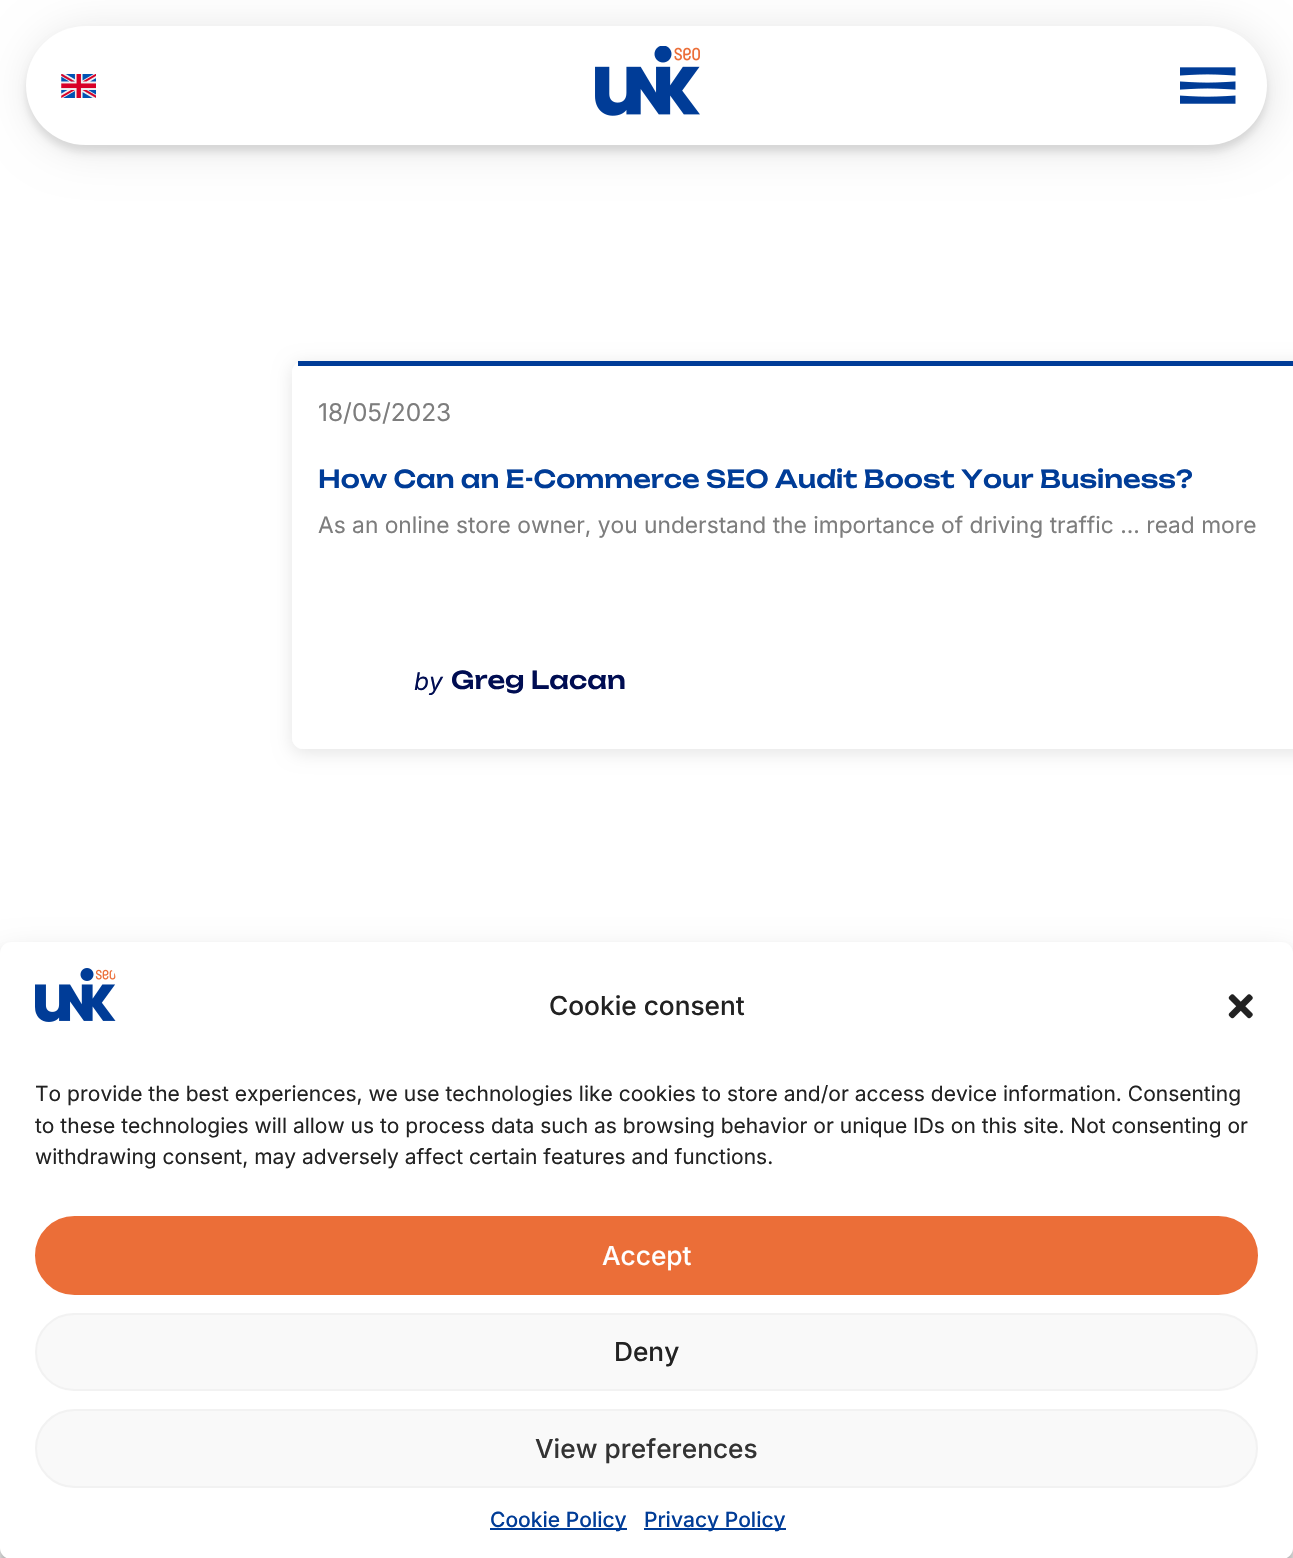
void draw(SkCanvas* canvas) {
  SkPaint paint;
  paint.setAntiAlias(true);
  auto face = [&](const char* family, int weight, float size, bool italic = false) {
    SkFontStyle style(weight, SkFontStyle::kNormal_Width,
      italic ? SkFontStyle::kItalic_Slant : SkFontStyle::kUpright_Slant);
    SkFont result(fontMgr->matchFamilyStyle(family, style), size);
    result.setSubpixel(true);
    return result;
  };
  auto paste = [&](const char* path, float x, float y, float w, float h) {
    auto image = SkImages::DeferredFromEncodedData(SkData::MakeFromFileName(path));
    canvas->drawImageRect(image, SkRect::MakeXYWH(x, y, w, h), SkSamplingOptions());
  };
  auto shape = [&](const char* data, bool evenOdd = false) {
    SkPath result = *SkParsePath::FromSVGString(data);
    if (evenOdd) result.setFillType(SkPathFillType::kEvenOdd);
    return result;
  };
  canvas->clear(0xffffffff);
  paint.setColor(0x1a000000);
  paint.setMaskFilter(SkMaskFilter::MakeBlur(kNormal_SkBlurStyle, 3.5f));
  canvas->drawRoundRect(SkRect::MakeXYWH(26, 33, 1241, 119), 59.5f, 59.5f, paint);
  paint.setMaskFilter(nullptr);
  paint.setMaskFilter(SkMaskFilter::MakeBlur(kNormal_SkBlurStyle, 22));
  canvas->drawRoundRect(SkRect::MakeXYWH(30, 30, 1241, 119), 59.5f, 59.5f, paint);
  paint.setMaskFilter(nullptr);
  paint.setColor(0xffffffff);
  canvas->drawRoundRect(SkRect::MakeXYWH(26, 26, 1241, 119), 59.5f, 59.5f, paint);
  paste("img/1.png", 61, 74, 35, 24);
  paste("img/2.png", 595, 46, 105, 70);
  paste("img/3.png", 1180, 67, 56, 37);
  canvas->save();
  canvas->clipPath(shape("M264 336H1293V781H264ZM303 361H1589C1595 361 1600 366 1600 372V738C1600 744 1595 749 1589 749H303C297 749 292 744 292 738V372C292 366 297 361 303 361Z", true), true);
  paint.setColor(0x1a000000);
  paint.setMaskFilter(SkMaskFilter::MakeBlur(kNormal_SkBlurStyle, 9));
  canvas->drawRoundRect(SkRect::MakeXYWH(292, 364, 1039, 389), 11, 11, paint);
  paint.setMaskFilter(nullptr);
  canvas->restore();
  paint.setColor(0xffffffff);
  canvas->drawPath(shape("M303 366H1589C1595 366 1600 368 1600 371V738C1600 744 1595 749 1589 749H303C297 749 292 744 292 738V371C292 368 297 366 303 366Z"), paint);
  paint.setColor(0xff003c97);
  canvas->drawRect(SkRect::MakeXYWH(298, 361, 995, 5), paint);
  paint.setColor(0x3b000000);
  paint.setMaskFilter(SkMaskFilter::MakeBlur(kNormal_SkBlurStyle, 5));
  canvas->drawRoundRect(SkRect::MakeXYWH(0, 952, 1293, 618), 11, 11, paint);
  paint.setMaskFilter(nullptr);
  paint.setColor(0x30000000);
  paint.setMaskFilter(SkMaskFilter::MakeBlur(kNormal_SkBlurStyle, 17.5f));
  canvas->drawRoundRect(SkRect::MakeXYWH(0, 959, 1293, 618), 11, 11, paint);
  paint.setMaskFilter(nullptr);
  paint.setColor(0xffffffff);
  canvas->drawRoundRect(SkRect::MakeXYWH(0, 942, 1293, 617), 11, 11, paint);
  paste("img/4.png", 35, 968, 81, 54);
  paste("img/5.png", 1228, 994, 25, 25);
  paint.setColor(0xffeb6e38);
  canvas->drawRoundRect(SkRect::MakeXYWH(36, 1217, 1221, 77), 38.5f, 38.5f, paint);
  paint.setStroke(true);
  paint.setStrokeWidth(2);
  canvas->drawRoundRect(SkRect::MakeXYWH(36, 1217, 1221, 77), 38.5f, 38.5f, paint);
  paint.setStroke(false);
  paint.setColor(0xfff9f9f9);
  canvas->drawRoundRect(SkRect::MakeXYWH(36, 1314, 1221, 76), 38, 38, paint);
  paint.setStroke(true);
  paint.setColor(0xfff2f2f2);
  canvas->drawRoundRect(SkRect::MakeXYWH(36, 1314, 1221, 76), 38, 38, paint);
  paint.setStroke(false);
  paint.setColor(0xfff9f9f9);
  canvas->drawRoundRect(SkRect::MakeXYWH(36, 1410, 1221, 77), 38.5f, 38.5f, paint);
  paint.setStroke(true);
  paint.setColor(0xfff2f2f2);
  canvas->drawRoundRect(SkRect::MakeXYWH(36, 1410, 1221, 77), 38.5f, 38.5f, paint);
  paint.setStroke(false);
  paint.setColor(0xff003c97);
  canvas->drawRect(SkRect::MakeXYWH(490, 1528, 137, 2), paint);
  canvas->drawRect(SkRect::MakeXYWH(644, 1528, 142, 2), paint);
  auto f0 = face("Inter", 400, 24.5f);
  paint.setColor(0xff7d7d7d);
  canvas->drawString("18/05/2023", 318, 421, f0, paint);
  auto f1 = face("Unbounded", 500, 24.5f);
  paint.setColor(0xff003c97);
  canvas->drawString("How Can an E-Commerce SEO Audit Boost Your Business?", 318, 488, f1, paint);
  auto f2 = face("Inter", 400, 22.75f);
  paint.setColor(0xff7d7d7d);
  canvas->drawString("As an online store owner, you understand the importance of driving traffic ... read more", 318, 533, f2, paint);
  auto f3 = face("Inter", 400, 24.5f, true);
  paint.setColor(0xff000d52);
  canvas->drawString("by", 414, 690, f3, paint);
  canvas->drawString("Greg Lacan", 451, 689, f1, paint);
  auto f4 = face("Inter", 500, 26.25f);
  paint.setColor(0xff222222);
  canvas->drawString("Cookie consent", 549, 1015, f4, paint);
  auto f5 = face("Inter", 400, 21);
  {
    const struct { const char* s; float x, y; } items[] = {
      {"To provide the best experiences, we use technologies like cookies to store and/or access device information. Consenting", 35, 1101},
      {"to these technologies will allow us to process data such as browsing behavior or unique IDs on this site. Not consenting or", 35, 1133},
      {"withdrawing consent, may adversely affect certain features and functions.", 35, 1164},
    };
    for (auto [s, x, y] : items) {
      canvas->drawString(s, x, y, f5, paint);
    }
  }
  paint.setColor(0xffffffff);
  canvas->drawString("Accept", 602, 1265, f4, paint);
  paint.setColor(0xff222222);
  canvas->drawString("Deny", 614, 1361, f4, paint);
  paint.setColor(0xff333333);
  canvas->drawString("View preferences", 535, 1458, f4, paint);
  auto f6 = face("Inter", 500, 21);
  paint.setColor(0xff003c97);
  canvas->drawString("Cookie Policy", 490, 1527, f6, paint);
  canvas->drawString("Privacy Policy", 644, 1527, f6, paint);
}
